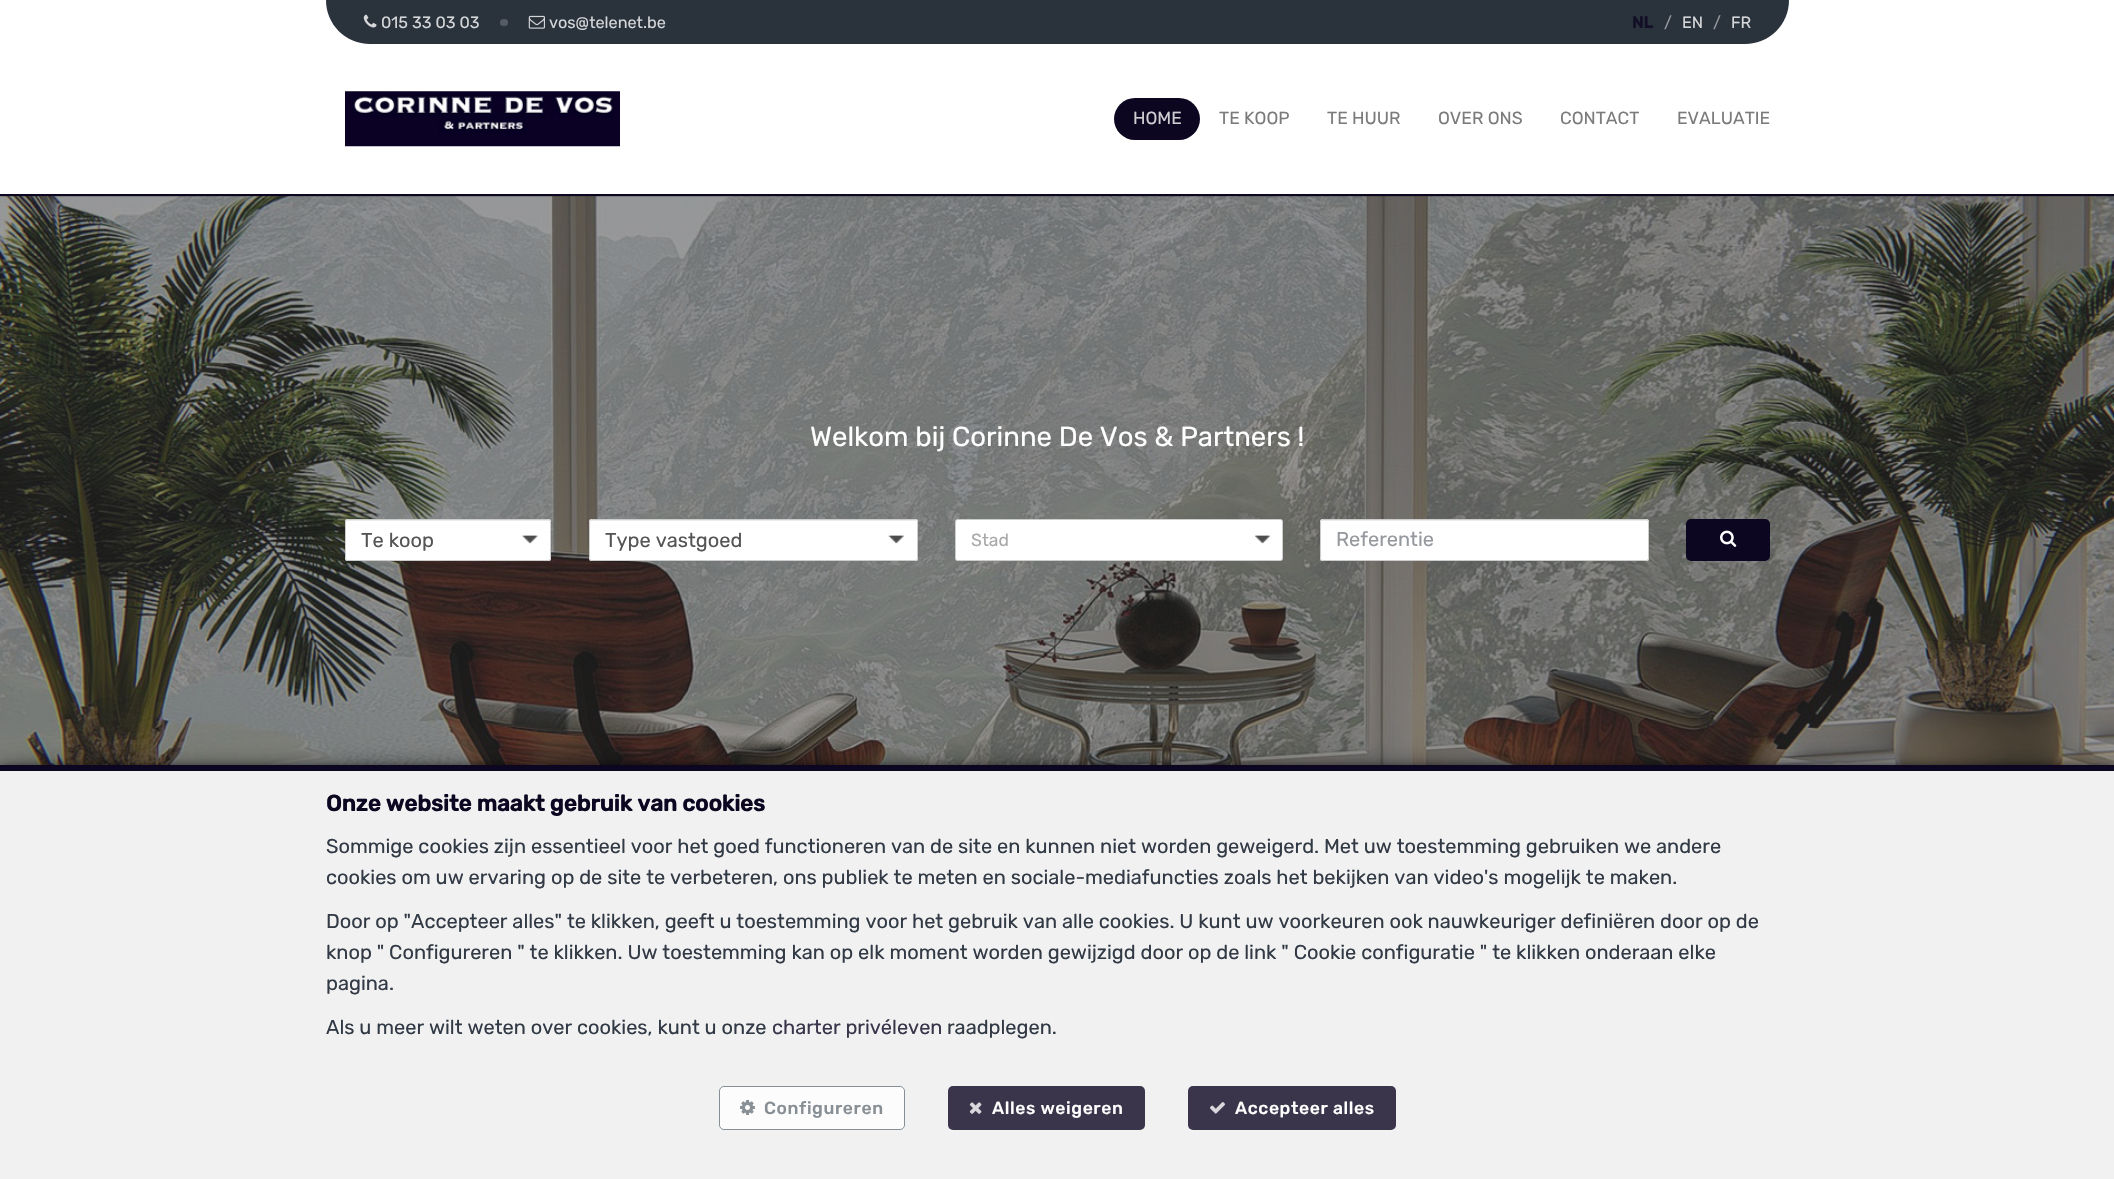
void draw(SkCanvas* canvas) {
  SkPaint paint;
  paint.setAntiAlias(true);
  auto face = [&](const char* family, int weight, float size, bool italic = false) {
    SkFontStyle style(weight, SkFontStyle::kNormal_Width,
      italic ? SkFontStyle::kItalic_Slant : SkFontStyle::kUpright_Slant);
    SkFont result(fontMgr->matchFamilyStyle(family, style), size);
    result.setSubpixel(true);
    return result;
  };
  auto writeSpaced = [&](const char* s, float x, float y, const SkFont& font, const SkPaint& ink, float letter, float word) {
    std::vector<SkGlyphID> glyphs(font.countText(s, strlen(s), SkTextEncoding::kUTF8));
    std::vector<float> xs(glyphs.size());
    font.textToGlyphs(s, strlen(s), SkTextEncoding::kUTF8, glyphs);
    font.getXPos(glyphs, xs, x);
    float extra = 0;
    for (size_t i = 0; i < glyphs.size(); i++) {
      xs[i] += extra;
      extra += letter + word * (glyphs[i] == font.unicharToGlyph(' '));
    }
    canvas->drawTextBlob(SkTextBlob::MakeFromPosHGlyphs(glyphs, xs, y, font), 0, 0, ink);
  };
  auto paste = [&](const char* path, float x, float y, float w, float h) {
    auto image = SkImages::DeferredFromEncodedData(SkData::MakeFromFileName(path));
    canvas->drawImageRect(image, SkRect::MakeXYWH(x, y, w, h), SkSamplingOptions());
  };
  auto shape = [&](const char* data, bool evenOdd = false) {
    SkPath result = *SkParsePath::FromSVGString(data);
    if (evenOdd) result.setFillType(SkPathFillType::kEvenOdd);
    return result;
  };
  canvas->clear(0xffffffff);
  paint.setColor(0xff0c0620);
  canvas->drawRect(SkRect::MakeXYWH(0, 194, 2114, 2), paint);
  paint.setColor(0xff2a323c);
  canvas->drawPath(shape("M326 0H1789C1789 24.5 1769.5 44 1745 44H370C345.5 44 326 24.5 326 0Z"), paint);
  paste("img/1.png", 363, 14, 14, 14);
  paint.setColor(0xff555b63);
  canvas->drawRoundRect(SkRect::MakeXYWH(500, 19, 8, 7), 3.5f, 3.5f, paint);
  paste("img/2.png", 528, 15, 17, 14);
  paste("img/3.png", 345, 91, 275, 56);
  paint.setColor(0xff0c0620);
  canvas->drawRoundRect(SkRect::MakeXYWH(1114, 98, 86, 42), 21, 21, paint);
  paint.setColor(0xff333333);
  canvas->drawRect(SkRect::MakeXYWH(0, 196, 2114, 569), paint);
  paste("img/4.png", 0, 196, 2114, 569);
  paint.setColor(0xffffffff);
  canvas->drawRoundRect(SkRect::MakeXYWH(345, 519, 206, 42), 2.5f, 2.5f, paint);
  paste("img/5.png", 522, 535, 16, 9);
  paint.setColor(0xffececec);
  canvas->drawPath(shape("M348 521H549L550 522C550 521 550 520 549 520H347H346V522C346 521 347 521 348 521Z"), paint);
  paint.setStroke(true);
  paint.setStrokeWidth(1);
  paint.setColor(0xffcccccc);
  canvas->drawRoundRect(SkRect::MakeXYWH(345.5f, 519.5f, 205, 41), 2, 2, paint);
  paint.setStroke(false);
  paint.setColor(0xffffffff);
  canvas->drawRoundRect(SkRect::MakeXYWH(589, 519, 329, 42), 2.5f, 2.5f, paint);
  paste("img/6.png", 888, 535, 16, 9);
  paint.setColor(0xffececec);
  canvas->drawPath(shape("M591 521H915C916 521 916 521 916 522C916 521 916 520 915 520H591C590 520 590 521 590 522Z"), paint);
  paint.setStroke(true);
  paint.setColor(0xffcccccc);
  canvas->drawRoundRect(SkRect::MakeXYWH(589.5f, 519.5f, 328, 41), 2, 2, paint);
  paint.setStroke(false);
  paint.setColor(0xffffffff);
  canvas->drawRoundRect(SkRect::MakeXYWH(955.5f, 519.5f, 327, 41), 2, 2, paint);
  paint.setStroke(true);
  paint.setColor(0xffcccccc);
  canvas->drawRoundRect(SkRect::MakeXYWH(955.5f, 519.5f, 327, 41), 2, 2, paint);
  paste("img/7.png", 1255, 535, 15, 9);
  paint.setStroke(false);
  paint.setColor(0xffffffff);
  canvas->drawRoundRect(SkRect::MakeXYWH(1320, 519, 329, 42), 2.5f, 2.5f, paint);
  paint.setColor(0xffececec);
  canvas->drawPath(shape("M1322 521H1646C1647 521 1648 521 1648 522C1648 521 1648 520 1647 520H1322C1321 520 1321 521 1321 522Z"), paint);
  paint.setStroke(true);
  paint.setColor(0xffcccccc);
  canvas->drawRoundRect(SkRect::MakeXYWH(1320.5f, 519.5f, 328, 41), 2, 2, paint);
  paint.setStroke(false);
  paint.setColor(0xff0c0620);
  canvas->drawRoundRect(SkRect::MakeXYWH(1686, 519, 84, 42), 5, 5, paint);
  paste("img/8.png", 1720, 530, 17, 17);
  paint.setColor(0xe6000000);
  paint.setMaskFilter(SkMaskFilter::MakeBlur(kNormal_SkBlurStyle, 12.5f));
  canvas->drawRect(SkRect::MakeXYWH(0, 773, 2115, 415), paint);
  paint.setMaskFilter(nullptr);
  paint.setMaskFilter(SkMaskFilter::MakeBlur(kNormal_SkBlurStyle, 5));
  canvas->drawRect(SkRect::MakeXYWH(0, 770, 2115, 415), paint);
  paint.setMaskFilter(nullptr);
  paint.setColor(0xfff1f1f1);
  canvas->drawRect(SkRect::MakeXYWH(0, 771, 2114, 408), paint);
  paint.setColor(0xff0c0620);
  canvas->drawRect(SkRect::MakeXYWH(0, 765, 2114, 6), paint);
  paint.setColor(0xfffcfcfc);
  canvas->drawRoundRect(SkRect::MakeXYWH(719.5f, 1086.5f, 185, 43), 4.5f, 4.5f, paint);
  paint.setStroke(true);
  paint.setColor(0xff878e94);
  canvas->drawRoundRect(SkRect::MakeXYWH(719.5f, 1086.5f, 185, 43), 4.5f, 4.5f, paint);
  paste("img/9.png", 740, 1100, 15, 15);
  paint.setStroke(false);
  paint.setColor(0xff3a354a);
  canvas->drawRoundRect(SkRect::MakeXYWH(948, 1086, 197, 44), 5, 5, paint);
  paste("img/10.png", 969, 1102, 13, 12);
  canvas->drawRoundRect(SkRect::MakeXYWH(1188, 1086, 208, 44), 5, 5, paint);
  paste("img/11.png", 1210, 1102, 15, 12);
  auto f0 = face("Rubik", 400, 16.25f);
  paint.setColor(0xffd4d6d8);
  canvas->drawString("015 33 03 03", 381, 28, f0, paint);
  canvas->drawString("vos@telenet.be", 549, 28, f0, paint);
  auto f1 = face("Rubik", 700, 16.25f);
  paint.setColor(0xff120f26);
  canvas->drawString("NL", 1632, 28, f1, paint);
  paint.setColor(0xff95999e);
  canvas->drawString("/", 1664, 28, f0, paint);
  paint.setColor(0xffd4d6d8);
  canvas->drawString("EN", 1682, 28, f0, paint);
  paint.setColor(0xff95999e);
  canvas->drawString("/", 1713, 28, f0, paint);
  paint.setColor(0xffd4d6d8);
  canvas->drawString("FR", 1731, 28, f0, paint);
  auto f2 = face("Rubik", 400, 17.5f);
  paint.setColor(0xffcecdd2);
  canvas->drawString("HOME", 1133, 124, f2, paint);
  paint.setColor(0xff7b7b7b);
  {
    const struct { const char* s; float x, y; } items[] = {
      {"TE KOOP", 1219, 124},
      {"TE HUUR", 1327, 124},
      {"OVER ONS", 1438, 124},
      {"CONTACT", 1560, 124},
      {"EVALUATIE", 1677, 124},
    };
    for (auto [s, x, y] : items) {
      canvas->drawString(s, x, y, f2, paint);
    }
  }
  auto f3 = face("Rubik", 400, 27.5f);
  paint.setColor(0xffffffff);
  canvas->drawString("Welkom bij Corinne De Vos & Partners !", 810, 446, f3, paint);
  auto f4 = face("Rubik", 400, 20);
  paint.setColor(0xff555555);
  canvas->drawString("Te koop", 361, 547, f4, paint);
  canvas->drawString("Type vastgoed", 605, 547, f4, paint);
  paint.setColor(0xffaaaaaa);
  canvas->drawString("Stad", 971, 546, f2, paint);
  paint.setColor(0xff95999e);
  canvas->drawString("Referentie", 1336, 546, f4, paint);
  auto f5 = face("Rubik", 700, 22.5f);
  paint.setColor(0xff0c0620);
  canvas->drawString("Onze website maakt gebruik van cookies", 326, 811, f5, paint);
  paint.setColor(0xff323a45);
  {
    const struct { const char* s; float x, y; } items[] = {
      {"Sommige cookies zijn essentieel voor het goed functioneren van de site en kunnen niet worden geweigerd. Met uw toestemming gebruiken we andere", 326, 853},
      {"cookies om uw ervaring op de site te verbeteren, ons publiek te meten en sociale-mediafuncties zoals het bekijken van video's mogelijk te maken.", 326, 884},
      {"Door op \"Accepteer alles\" te klikken, geeft u toestemming voor het gebruik van alle cookies. U kunt uw voorkeuren ook nauwkeuriger definiëren door op de", 326, 928},
      {"knop \" Configureren \" te klikken. Uw toestemming kan op elk moment worden gewijzigd door op de link \" Cookie configuratie \" te klikken onderaan elke", 326, 959},
      {"pagina.", 326, 990},
      {"Als u meer wilt weten over cookies, kunt u onze", 326, 1034},
    };
    for (auto [s, x, y] : items) {
      canvas->drawString(s, x, y, f4, paint);
    }
  }
  paint.setColor(0xff3a354a);
  canvas->drawString("charter privéleven", 772, 1034, f4, paint);
  paint.setColor(0xff323a45);
  canvas->drawString("raadplegen.", 947, 1034, f4, paint);
  auto f6 = face("Rubik", 500, 17.5f);
  paint.setColor(0xff878e94);
  writeSpaced("Configureren", 764, 1114, f6, paint, 0.6f, 0);
  paint.setColor(0xffffffff);
  writeSpaced("Alles weigeren", 992, 1114, f6, paint, 0.6f, 0);
  writeSpaced("Accepteer alles", 1235, 1114, f6, paint, 0.6f, 0);
}
